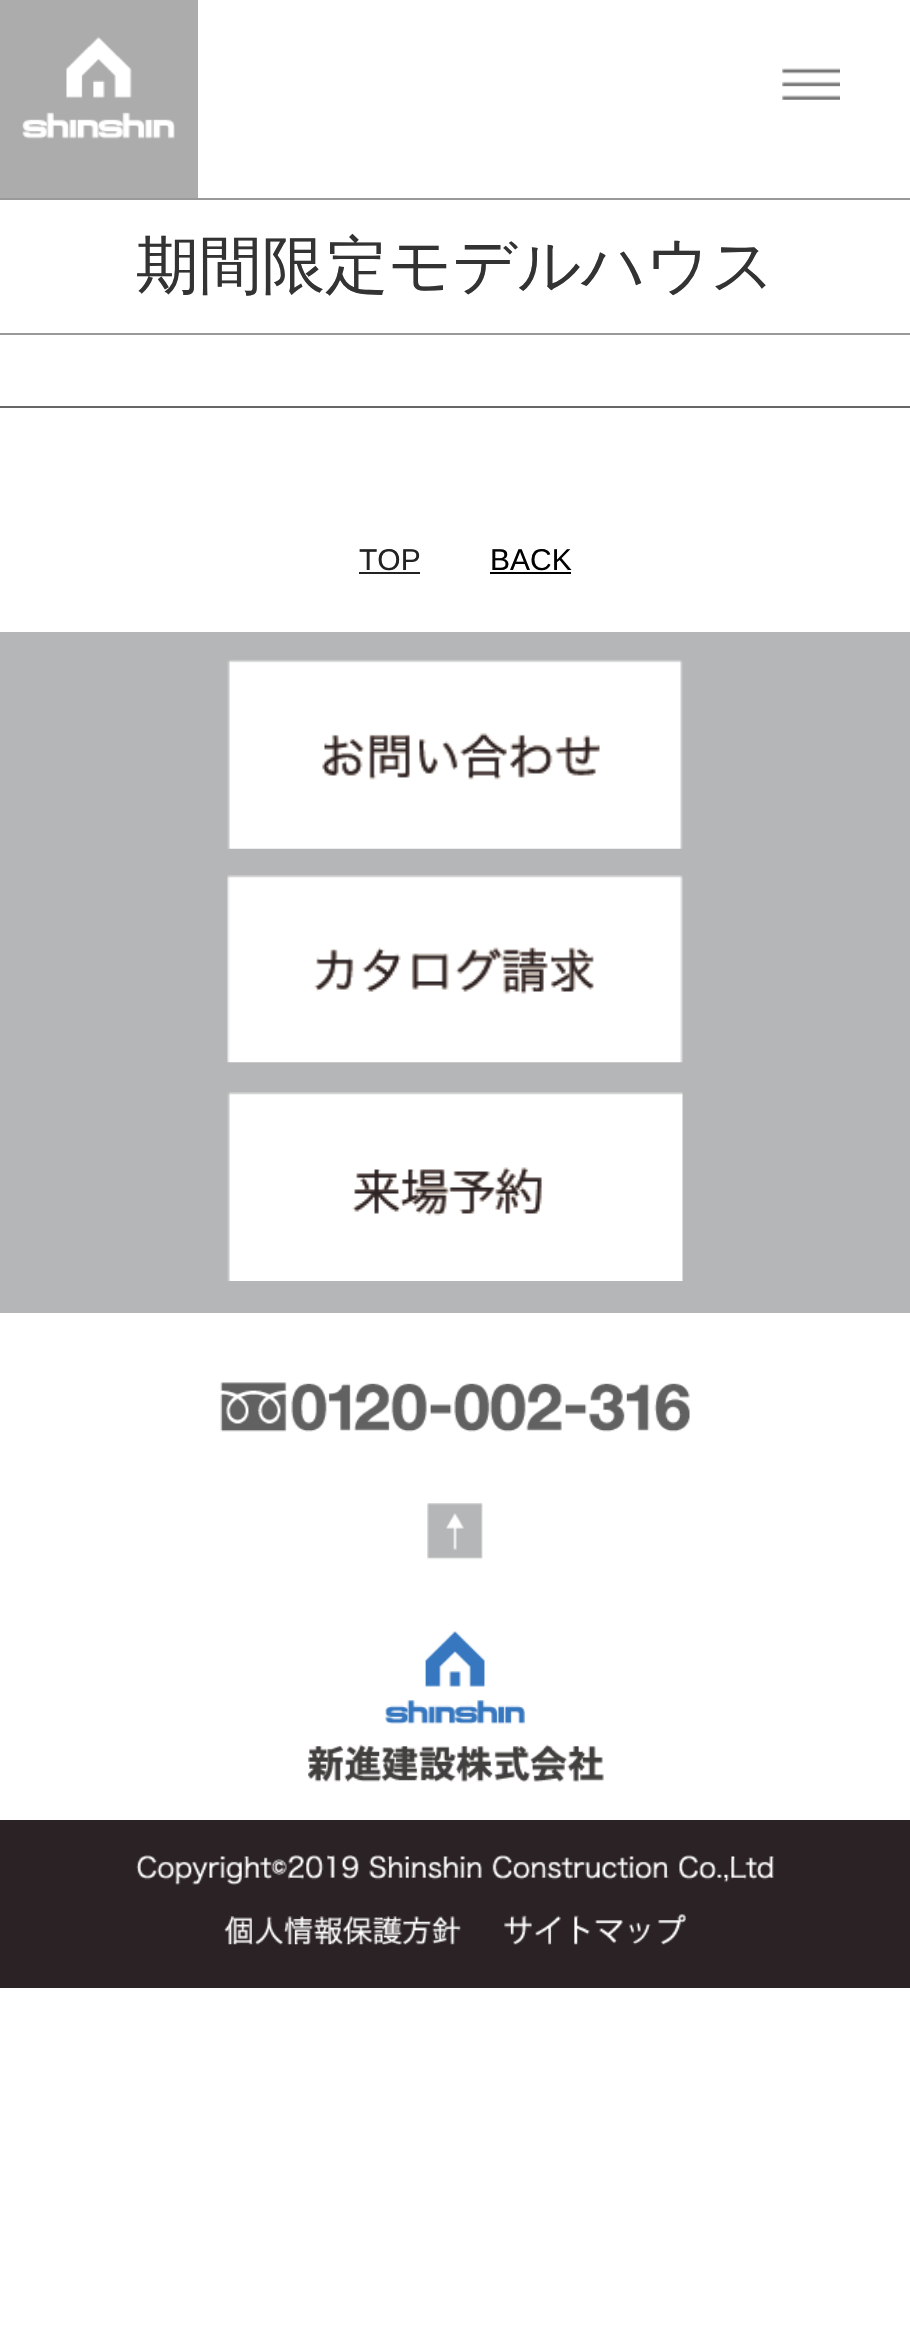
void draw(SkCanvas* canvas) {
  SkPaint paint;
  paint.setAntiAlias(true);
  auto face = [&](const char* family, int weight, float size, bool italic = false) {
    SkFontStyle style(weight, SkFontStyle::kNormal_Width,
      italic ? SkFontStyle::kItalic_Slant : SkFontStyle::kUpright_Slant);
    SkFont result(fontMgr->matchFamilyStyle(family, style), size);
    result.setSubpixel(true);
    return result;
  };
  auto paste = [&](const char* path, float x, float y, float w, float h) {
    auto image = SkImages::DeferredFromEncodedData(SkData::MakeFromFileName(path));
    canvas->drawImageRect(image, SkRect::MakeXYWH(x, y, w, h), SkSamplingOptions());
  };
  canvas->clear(0xffffffff);
  paint.setColor(0xff999999);
  canvas->drawRect(SkRect::MakeXYWH(0, 198, 910, 2), paint);
  paint.setColor(0xffacacac);
  canvas->drawRect(SkRect::MakeXYWH(0, 0, 198, 198), paint);
  paste("img/1.png", 22, 36, 153, 103);
  paste("img/2.png", 782, 68, 58, 32);
  {
    const struct { float x, y, w, h; SkColor color; } items[] = {
      {0, 333, 910, 2, 0xff999999},
      {0, 406, 910, 2, 0xff666666},
      {359, 572, 61, 2, 0xff222222},
      {490, 572, 81, 2, 0xff000000},
      {0, 632, 910, 681, 0xffb5b6b7},
    };
    for (auto [x, y, w, h, color] : items) {
      paint.setColor(color);
      canvas->drawRect(SkRect::MakeXYWH(x, y, w, h), paint);
    }
  }
  paste("img/3.png", 227, 659, 456, 190);
  paste("img/4.png", 227, 875, 456, 188);
  paste("img/5.png", 227, 1092, 456, 189);
  paste("img/6.png", 220, 1382, 470, 50);
  paste("img/7.png", 427, 1503, 56, 57);
  paste("img/8.png", 385, 1631, 140, 93);
  paste("img/9.png", 308, 1744, 296, 38);
  paint.setColor(0xff2b2225);
  canvas->drawRect(SkRect::MakeXYWH(0, 1820, 910, 168), paint);
  paste("img/10.png", 136, 1855, 638, 30);
  paste("img/11.png", 224, 1916, 237, 29);
  paste("img/12.png", 504, 1914, 182, 31);
  auto f0 = face("WenQuanYi Zen Hei", 500, 63);
  paint.setColor(0xff333333);
  canvas->drawString("期間限定モデルハウス", 136, 287, f0, paint);
  auto f1 = face("Liberation Sans", 400, 30);
  paint.setColor(0xff222222);
  canvas->drawString("TOP", 359, 570, f1, paint);
  paint.setColor(0xff000000);
  canvas->drawString("BACK", 490, 570, f1, paint);
}
